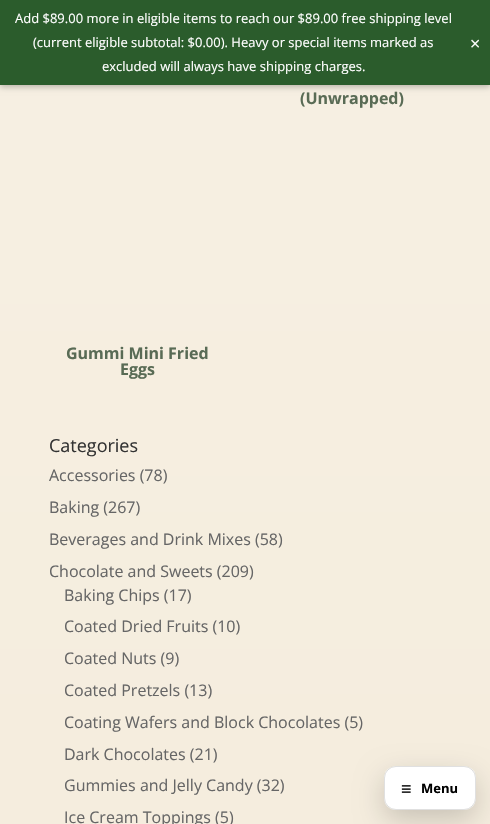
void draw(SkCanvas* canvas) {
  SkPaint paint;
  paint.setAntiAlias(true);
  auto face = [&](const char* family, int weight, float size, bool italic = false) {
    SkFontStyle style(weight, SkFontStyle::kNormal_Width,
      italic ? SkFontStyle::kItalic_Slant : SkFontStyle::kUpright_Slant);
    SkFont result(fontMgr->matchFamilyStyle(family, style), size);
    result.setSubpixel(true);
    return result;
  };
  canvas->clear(0xffffffff);
  {
    const SkColor colors[] = {0xfff9f5ed, 0xfff4ebda};
    const float stops[] = {0, 1};
    const SkPoint ends[] = {{245, -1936}, {245, 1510}};
    paint.setShader(SkGradientShader::MakeLinear(ends, colors, stops, 2, SkTileMode::kClamp));
    paint.setAlpha(255);
  }
  canvas->drawRect(SkRect::MakeXYWH(0, 85, 490, 739), paint);
  paint.setShader(nullptr);
  paint.setColor(0x40000000);
  paint.setMaskFilter(SkMaskFilter::MakeBlur(kNormal_SkBlurStyle, 3));
  canvas->drawRect(SkRect::MakeXYWH(0, 2, 490, 85), paint);
  paint.setMaskFilter(nullptr);
  paint.setColor(0xff2b5c2c);
  canvas->drawRect(SkRect::MakeXYWH(0, 0, 490, 85), paint);
  paint.setColor(0x2e000000);
  paint.setMaskFilter(SkMaskFilter::MakeBlur(kNormal_SkBlurStyle, 14));
  canvas->drawRoundRect(SkRect::MakeXYWH(384, 776, 92, 44), 12, 12, paint);
  paint.setMaskFilter(nullptr);
  paint.setColor(0xffffffff);
  canvas->drawRoundRect(SkRect::MakeXYWH(384, 766, 92, 44), 12, 12, paint);
  paint.setStroke(true);
  paint.setStrokeWidth(1);
  paint.setColor(0x1f000000);
  canvas->drawRoundRect(SkRect::MakeXYWH(384.5f, 766.5f, 91, 43), 11.5f, 11.5f, paint);
  auto f0 = face("Open Sans", 400, 13);
  paint.setStroke(false);
  paint.setColor(0xffffffff);
  {
    const struct { const char* s; float x, y; } items[] = {
      {"Add $89.00 more in eligible items to reach our $89.00 free shipping level", 15, 23},
      {"(current eligible subtotal: $0.00). Heavy or special items marked as", 33, 47},
      {"excluded will always have shipping charges.", 102, 71},
    };
    for (auto [s, x, y] : items) {
      canvas->drawString(s, x, y, f0, paint);
    }
  }
  auto f1 = face("Open Sans", 400, 18);
  canvas->drawString("×", 470, 50, f1, paint);
  auto f2 = face("Open Sans", 700, 16);
  paint.setColor(0xff596b55);
  {
    const struct { const char* s; float x, y; } items[] = {
      {"(Unwrapped)", 300, 104},
      {"Gummi Mini Fried", 66, 359},
      {"Eggs", 120, 375},
    };
    for (auto [s, x, y] : items) {
      canvas->drawString(s, x, y, f2, paint);
    }
  }
  paint.setColor(0xff333333);
  canvas->drawString("Categories", 49, 452, f1, paint);
  auto f3 = face("Open Sans", 400, 16);
  paint.setColor(0xff666666);
  {
    const struct { const char* s; float x, y; } items[] = {
      {"Accessories (78)", 49, 481},
      {"Baking (267)", 49, 513},
      {"Beverages and Drink Mixes (58)", 49, 545},
      {"Chocolate and Sweets (209)", 49, 577},
      {"Baking Chips (17)", 64, 601},
      {"Coated Dried Fruits (10)", 64, 632},
      {"Coated Nuts (9)", 64, 664},
      {"Coated Pretzels (13)", 64, 696},
      {"Coating Wafers and Block Chocolates (5)", 64, 728},
      {"Dark Chocolates (21)", 64, 760},
      {"Gummies and Jelly Candy (32)", 64, 791},
      {"Ice Cream Toppings (5)", 64, 823},
    };
    for (auto [s, x, y] : items) {
      canvas->drawString(s, x, y, f3, paint);
    }
  }
  auto f4 = face("Liberation Sans", 700, 18);
  paint.setColor(0xff000000);
  canvas->drawString("≡", 401, 795, f4, paint);
  auto f5 = face("Open Sans", 700, 13);
  canvas->drawString("Menu", 421, 793, f5, paint);
}
